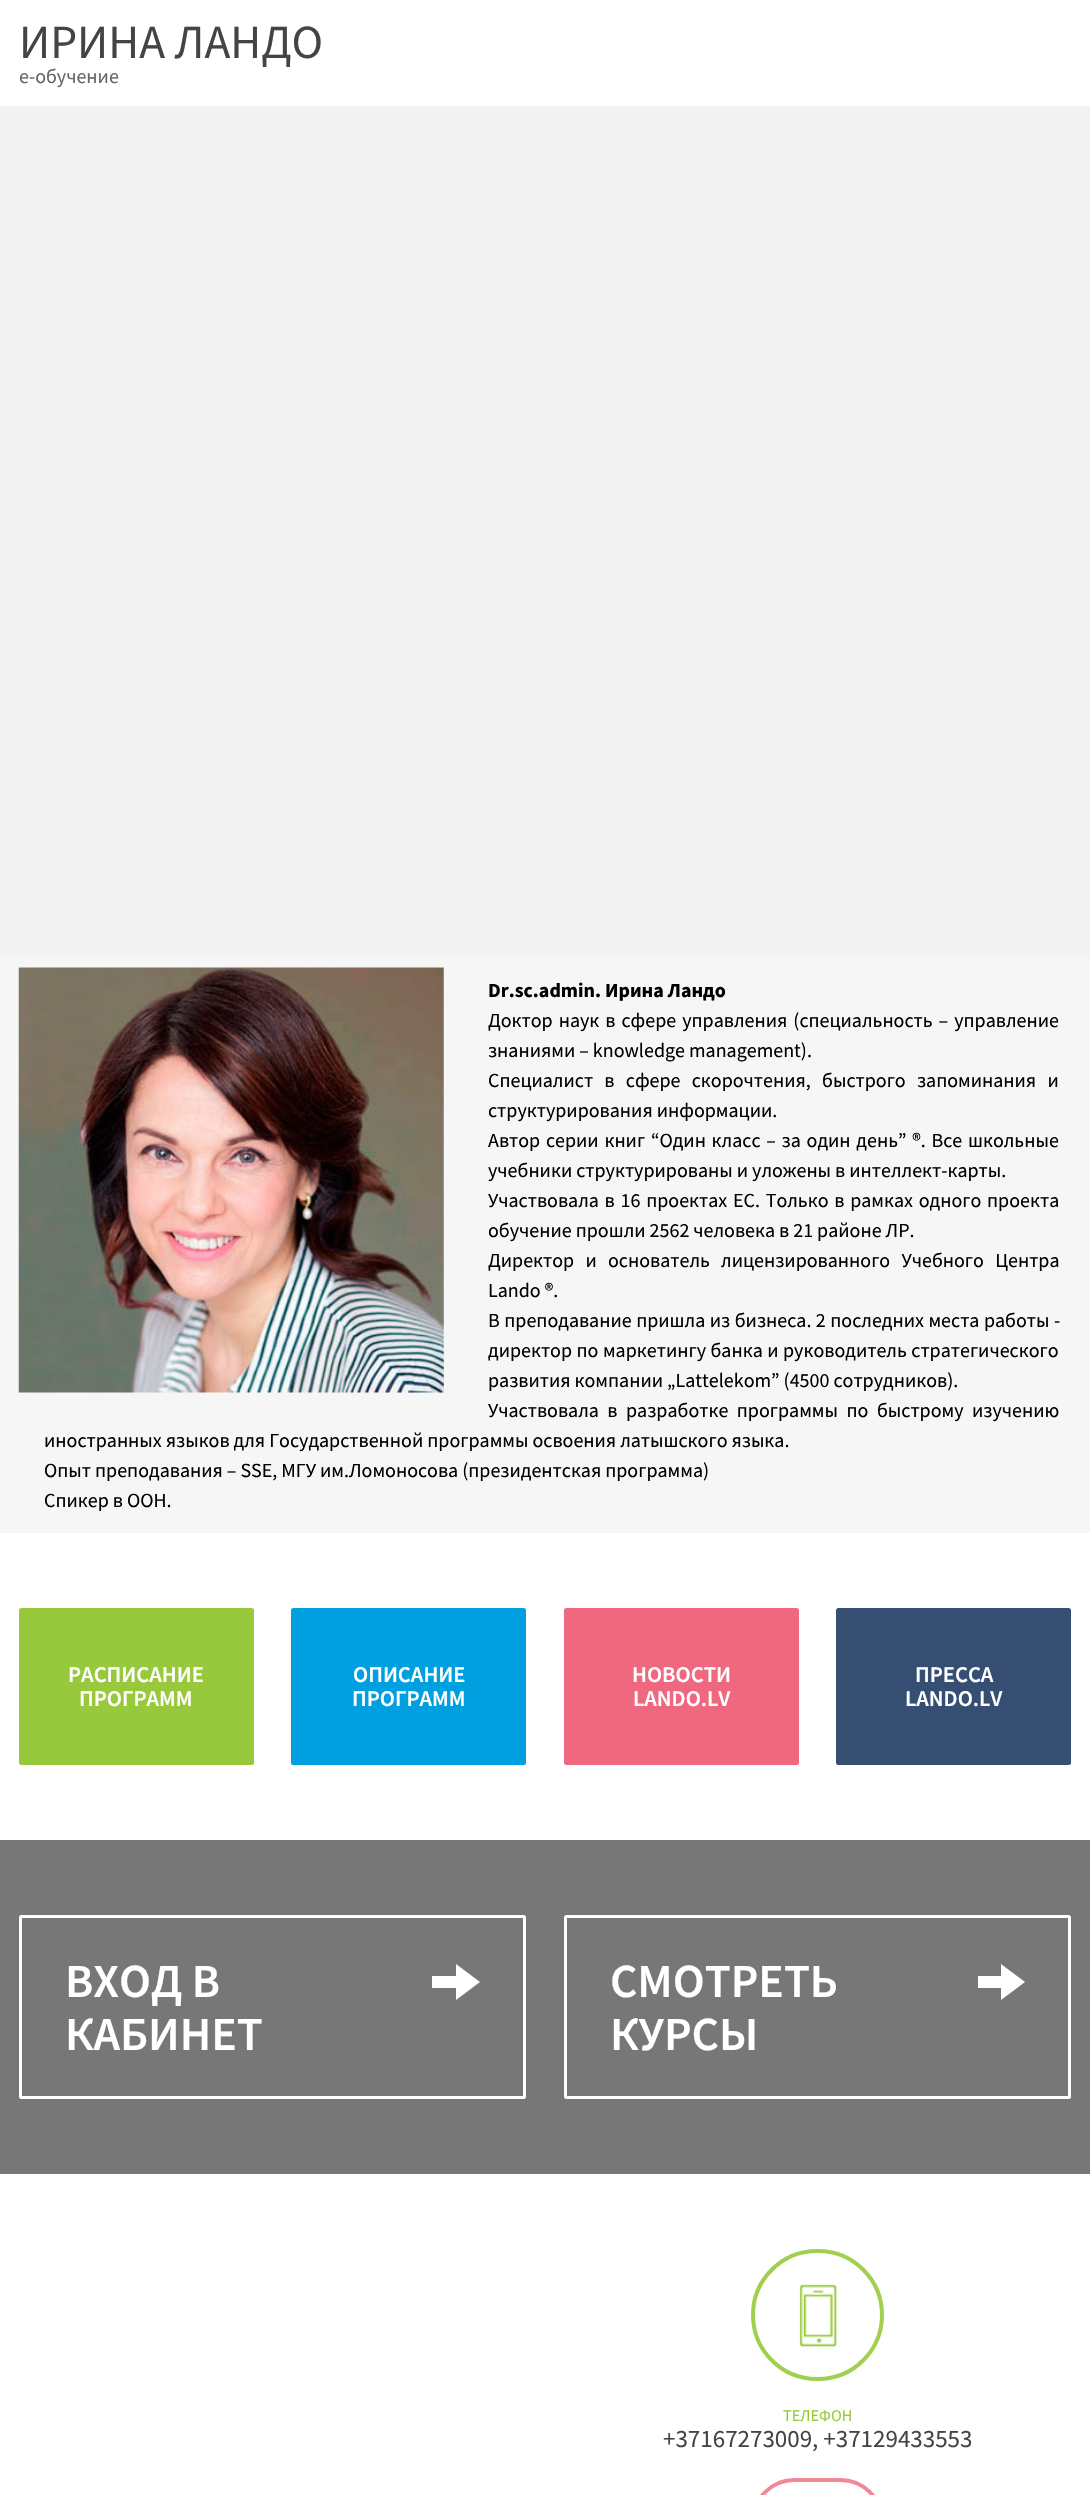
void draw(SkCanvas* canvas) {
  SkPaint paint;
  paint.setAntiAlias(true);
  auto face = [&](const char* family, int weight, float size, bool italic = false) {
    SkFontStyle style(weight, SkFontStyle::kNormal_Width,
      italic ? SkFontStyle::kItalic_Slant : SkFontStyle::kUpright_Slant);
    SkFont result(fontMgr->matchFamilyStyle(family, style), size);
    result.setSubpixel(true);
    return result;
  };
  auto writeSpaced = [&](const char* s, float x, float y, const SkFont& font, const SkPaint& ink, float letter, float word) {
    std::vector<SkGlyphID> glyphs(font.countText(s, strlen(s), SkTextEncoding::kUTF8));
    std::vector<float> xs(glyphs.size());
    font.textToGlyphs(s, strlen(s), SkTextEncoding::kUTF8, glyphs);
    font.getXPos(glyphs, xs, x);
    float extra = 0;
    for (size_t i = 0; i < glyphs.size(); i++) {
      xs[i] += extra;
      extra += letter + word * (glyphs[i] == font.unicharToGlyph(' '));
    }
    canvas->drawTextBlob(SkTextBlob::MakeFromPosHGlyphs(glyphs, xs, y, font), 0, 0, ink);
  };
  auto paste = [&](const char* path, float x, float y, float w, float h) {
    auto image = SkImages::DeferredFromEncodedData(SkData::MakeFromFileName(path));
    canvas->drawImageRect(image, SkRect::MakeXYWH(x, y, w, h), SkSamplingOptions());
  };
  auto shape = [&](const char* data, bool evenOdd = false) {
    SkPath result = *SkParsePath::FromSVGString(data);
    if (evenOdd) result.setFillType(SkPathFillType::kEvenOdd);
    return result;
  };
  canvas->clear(0xfff2f2f2);
  paint.setColor(0xffffffff);
  canvas->drawRect(SkRect::MakeXYWH(0, 0, 1090, 106), paint);
  paint.setColor(0xfff6f6f6);
  canvas->drawRect(SkRect::MakeXYWH(0, 955, 1090, 578), paint);
  paste("img/1.png", 18, 967, 426, 426);
  paint.setColor(0xffffffff);
  canvas->drawRect(SkRect::MakeXYWH(0, 1533, 1090, 307), paint);
  paint.setColor(0xff98c93c);
  canvas->drawRoundRect(SkRect::MakeXYWH(19, 1608, 235, 157), 2.5f, 2.5f, paint);
  paint.setColor(0xff009fdf);
  canvas->drawRoundRect(SkRect::MakeXYWH(291, 1608, 235, 157), 2.5f, 2.5f, paint);
  paint.setColor(0xfff06880);
  canvas->drawRoundRect(SkRect::MakeXYWH(564, 1608, 235, 157), 2.5f, 2.5f, paint);
  paint.setColor(0xff364e72);
  canvas->drawRoundRect(SkRect::MakeXYWH(836, 1608, 235, 157), 2.5f, 2.5f, paint);
  paint.setColor(0xff777777);
  canvas->drawRect(SkRect::MakeXYWH(0, 1840, 1090, 334), paint);
  paint.setStroke(true);
  paint.setStrokeWidth(3);
  paint.setColor(0xffffffff);
  canvas->drawRoundRect(SkRect::MakeXYWH(20.5f, 1916.5f, 504, 181), 1, 1, paint);
  paint.setStroke(false);
  canvas->drawPath(shape("M432 1988V1976H456V1964L480 1982L456 2000V1988Z"), paint);
  paint.setStroke(true);
  canvas->drawRoundRect(SkRect::MakeXYWH(565.5f, 1916.5f, 504, 181), 1, 1, paint);
  paint.setStroke(false);
  canvas->drawPath(shape("M978 1988V1976H1001V1964L1025 1982L1001 2000V1988Z"), paint);
  canvas->drawRect(SkRect::MakeXYWH(0, 2174, 1090, 321), paint);
  paste("img/2.png", 799, 2284, 38, 63);
  paint.setStroke(true);
  paint.setStrokeWidth(4);
  paint.setColor(0xffa3cf50);
  canvas->drawRoundRect(SkRect::MakeXYWH(753, 2251, 129, 128), 64, 64, paint);
  paint.setColor(0xfff3879a);
  canvas->drawRoundRect(SkRect::MakeXYWH(753, 2480, 129, 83), 64, 64, paint);
  auto f0 = face("Source Sans Pro", 400, 47.5f);
  paint.setStroke(false);
  paint.setColor(0xff444444);
  canvas->drawString("ИРИНА ЛАНДО", 19, 58, f0, paint);
  auto f1 = face("Source Sans Pro", 400, 20);
  paint.setColor(0xff666666);
  canvas->drawString("е-обучение", 19, 83, f1, paint);
  auto f2 = face("Source Sans Pro", 700, 20);
  paint.setColor(0xff000000);
  canvas->drawString("Dr.sc.admin. Ирина Ландо", 488, 997, f2, paint);
  writeSpaced("Доктор наук в сфере управления (специальность – управление", 488, 1027, f1, paint, 0, 2);
  canvas->drawString("знаниями – knowledge management).", 488, 1057, f1, paint);
  writeSpaced("Специалист в сфере скорочтения, быстрого запоминания и", 488, 1087, f1, paint, 0, 7.25f);
  canvas->drawString("структурирования информации.", 488, 1117, f1, paint);
  writeSpaced("Автор серии книг “Один класс – за один день” ®. Все школьные", 488, 1147, f1, paint, 0, 1.75f);
  canvas->drawString("учебники структурированы и уложены в интеллект-карты.", 488, 1177, f1, paint);
  writeSpaced("Участвовала в 16 проектах ЕС. Только в рамках одного проекта", 488, 1207, f1, paint, 0, 1.75f);
  canvas->drawString("обучение прошли 2562 человека в 21 районе ЛР.", 488, 1237, f1, paint);
  writeSpaced("Директор и основатель лицензированного Учебного Центра", 488, 1267, f1, paint, 0, 7.25f);
  canvas->drawString("Lando ®.", 488, 1297, f1, paint);
  writeSpaced("В преподавание пришла из бизнеса. 2 последних места работы -", 488, 1327, f1, paint, 0, 0.5f);
  writeSpaced("директор по маркетингу банка и руководитель стратегического", 488, 1357, f1, paint, 0, 0.5f);
  canvas->drawString("развития компании „Lattelekom” (4500 сотрудников).", 488, 1387, f1, paint);
  writeSpaced("Участвовала в разработке программы по быстрому изучению", 488, 1417, f1, paint, 0, 4.5f);
  {
    const struct { const char* s; float x, y; } items[] = {
      {"иностранных языков для Государственной программы освоения латышского языка.", 44, 1447},
      {"Опыт преподавания – SSE, МГУ им.Ломоносова (президентская программа)", 44, 1477},
      {"Спикер в ООН.", 44, 1507},
    };
    for (auto [s, x, y] : items) {
      canvas->drawString(s, x, y, f1, paint);
    }
  }
  auto f3 = face("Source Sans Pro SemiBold", 600, 22.5f);
  paint.setColor(0xffffffff);
  {
    const struct { const char* s; float x, y; } items[] = {
      {"РАСПИСАНИЕ", 68, 1682},
      {"ПРОГРАММ", 79, 1706},
      {"ОПИСАНИЕ", 353, 1682},
      {"ПРОГРАММ", 352, 1706},
      {"НОВОСТИ", 632, 1682},
      {"LANDO.LV", 633, 1706},
      {"ПРЕССА", 915, 1682},
      {"LANDO.LV", 905, 1706},
    };
    for (auto [s, x, y] : items) {
      canvas->drawString(s, x, y, f3, paint);
    }
  }
  auto f4 = face("Source Sans Pro SemiBold", 600, 47.5f);
  {
    const struct { const char* s; float x, y; } items[] = {
      {"ВХОД В", 65, 1997},
      {"КАБИНЕТ", 65, 2050},
      {"СМОТРЕТЬ", 610, 1997},
      {"КУРСЫ", 610, 2050},
    };
    for (auto [s, x, y] : items) {
      canvas->drawString(s, x, y, f4, paint);
    }
  }
  auto f5 = face("Source Sans Pro", 400, 16.25f);
  paint.setColor(0xff98c93c);
  canvas->drawString("ТЕЛЕФОН", 783, 2421, f5, paint);
  auto f6 = face("Source Sans Pro", 400, 25);
  paint.setColor(0xff444444);
  canvas->drawString("+37167273009, +37129433553", 663, 2447, f6, paint);
}
